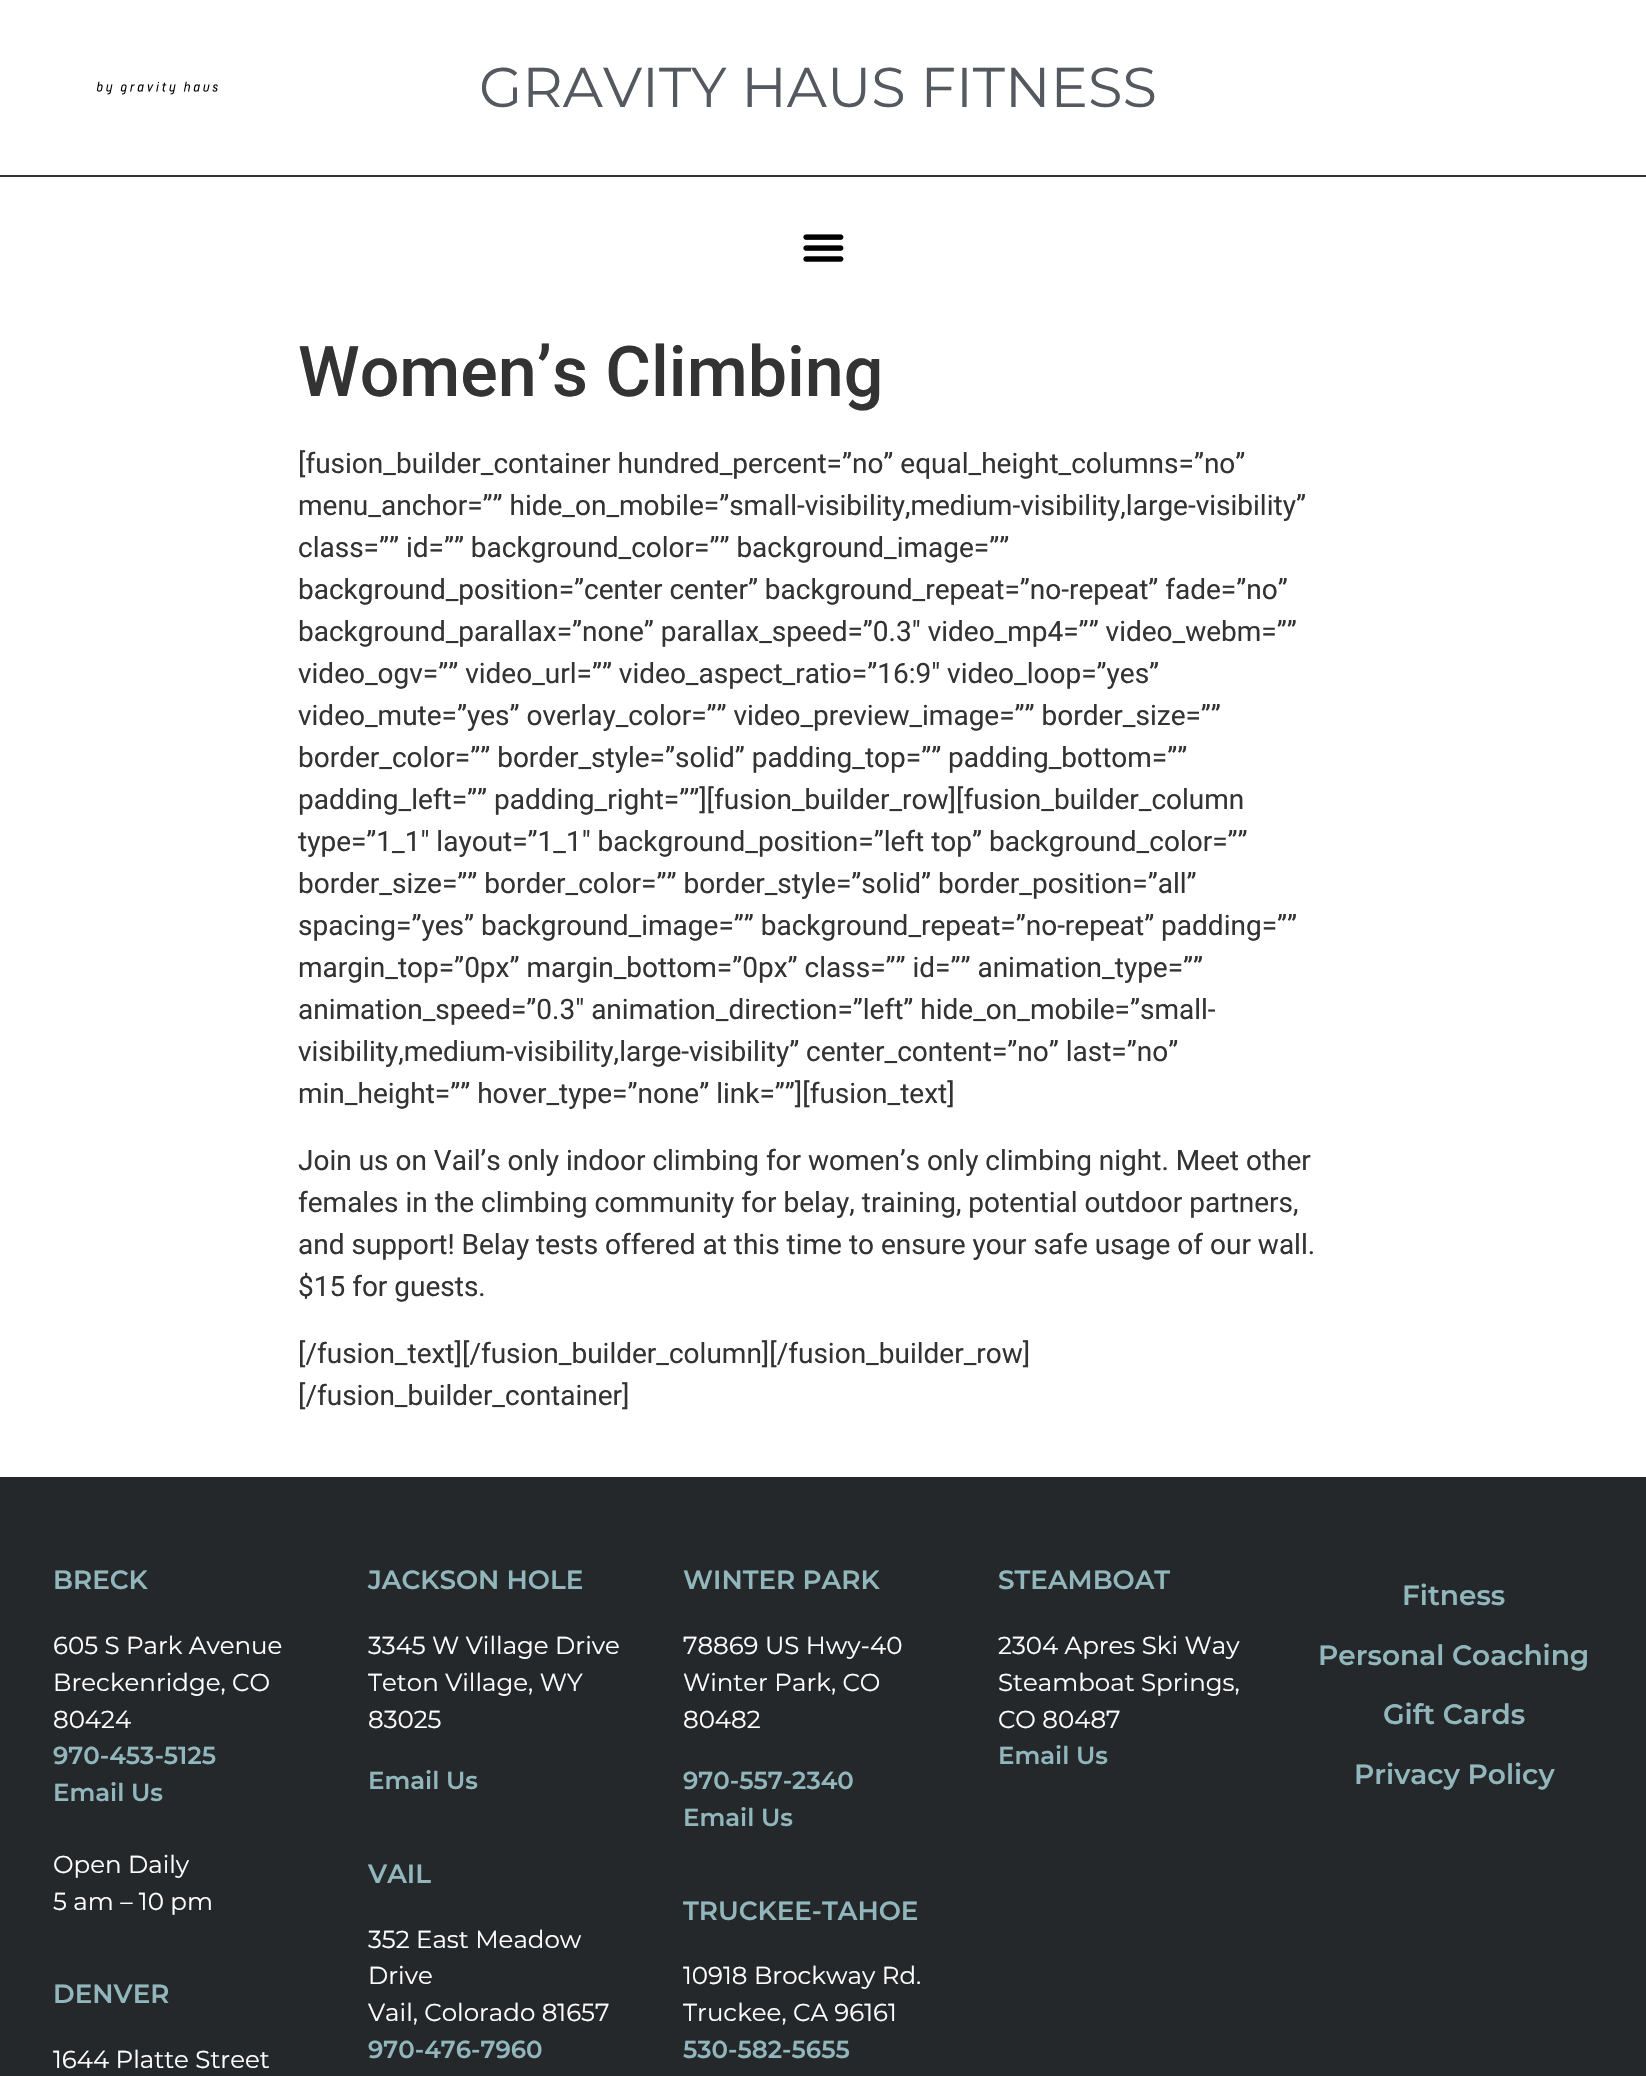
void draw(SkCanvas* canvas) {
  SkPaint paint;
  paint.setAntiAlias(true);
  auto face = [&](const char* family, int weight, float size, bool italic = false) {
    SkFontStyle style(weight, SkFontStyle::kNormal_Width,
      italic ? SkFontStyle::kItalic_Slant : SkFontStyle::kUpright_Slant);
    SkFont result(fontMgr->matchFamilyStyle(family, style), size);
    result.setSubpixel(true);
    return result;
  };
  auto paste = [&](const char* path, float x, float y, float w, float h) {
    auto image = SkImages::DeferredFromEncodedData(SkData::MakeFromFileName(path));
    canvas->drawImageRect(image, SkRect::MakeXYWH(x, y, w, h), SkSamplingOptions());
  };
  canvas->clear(0xffffffff);
  paste("img/1.png", 96, 81, 122, 14);
  paint.setColor(0xff333333);
  canvas->drawRect(SkRect::MakeXYWH(0, 175, 1646, 2), paint);
  paste("img/2.png", 803, 234, 41, 28);
  paint.setColor(0xff25282b);
  canvas->drawRect(SkRect::MakeXYWH(0, 1477, 1646, 599), paint);
  auto f0 = face("Montserrat", 400, 56);
  paint.setColor(0xff54595f);
  canvas->drawString("GRAVITY HAUS FITNESS", 479, 107, f0, paint);
  auto f1 = face("Roboto", 500, 70);
  paint.setColor(0xff333333);
  canvas->drawString("Women’s Climbing", 298, 396, f1, paint);
  auto f2 = face("Roboto", 400, 28);
  {
    const struct { const char* s; float x, y; } items[] = {
      {"[fusion_builder_container hundred_percent=”no” equal_height_columns=”no”", 298, 473},
      {"menu_anchor=”” hide_on_mobile=”small-visibility,medium-visibility,large-visibility”", 298, 515},
      {"class=”” id=”” background_color=”” background_image=””", 298, 557},
      {"background_position=”center center” background_repeat=”no-repeat” fade=”no”", 298, 599},
      {"background_parallax=”none” parallax_speed=”0.3″ video_mp4=”” video_webm=””", 298, 641},
      {"video_ogv=”” video_url=”” video_aspect_ratio=”16:9″ video_loop=”yes”", 298, 683},
      {"video_mute=”yes” overlay_color=”” video_preview_image=”” border_size=””", 298, 725},
      {"border_color=”” border_style=”solid” padding_top=”” padding_bottom=””", 298, 767},
      {"padding_left=”” padding_right=””][fusion_builder_row][fusion_builder_column", 298, 809},
      {"type=”1_1″ layout=”1_1″ background_position=”left top” background_color=””", 298, 851},
      {"border_size=”” border_color=”” border_style=”solid” border_position=”all”", 298, 893},
      {"spacing=”yes” background_image=”” background_repeat=”no-repeat” padding=””", 298, 935},
      {"margin_top=”0px” margin_bottom=”0px” class=”” id=”” animation_type=””", 298, 977},
      {"animation_speed=”0.3″ animation_direction=”left” hide_on_mobile=”small-", 298, 1019},
      {"visibility,medium-visibility,large-visibility” center_content=”no” last=”no”", 298, 1061},
      {"min_height=”” hover_type=”none” link=””][fusion_text]", 298, 1103},
      {"Join us on Vail’s only indoor climbing for women’s only climbing night. Meet other", 298, 1170},
      {"females in the climbing community for belay, training, potential outdoor partners,", 298, 1212},
      {"and support! Belay tests offered at this time to ensure your safe usage of our wall.", 298, 1254},
      {"$15 for guests.", 298, 1296},
      {"[/fusion_text][/fusion_builder_column][/fusion_builder_row]", 298, 1363},
      {"[/fusion_builder_container]", 298, 1405},
    };
    for (auto [s, x, y] : items) {
      canvas->drawString(s, x, y, f2, paint);
    }
  }
  auto f3 = face("Montserrat", 600, 26.25f);
  paint.setColor(0xff91b6bb);
  canvas->drawString("BRECK", 53, 1589, f3, paint);
  auto f4 = face("Montserrat", 400, 24.5f);
  paint.setColor(0xffffffff);
  {
    const struct { const char* s; float x, y; } items[] = {
      {"605 S Park Avenue", 53, 1654},
      {"Breckenridge, CO", 53, 1691},
      {"80424", 53, 1728},
    };
    for (auto [s, x, y] : items) {
      canvas->drawString(s, x, y, f4, paint);
    }
  }
  auto f5 = face("Montserrat", 600, 24.5f);
  paint.setColor(0xff91b6bb);
  canvas->drawString("970-453-5125", 53, 1764, f5, paint);
  canvas->drawString("Email Us", 53, 1801, f5, paint);
  paint.setColor(0xffffffff);
  canvas->drawString("Open Daily", 53, 1873, f4, paint);
  canvas->drawString("5 am – 10 pm", 53, 1910, f4, paint);
  paint.setColor(0xff91b6bb);
  canvas->drawString("DENVER", 53, 2003, f3, paint);
  paint.setColor(0xffffffff);
  canvas->drawString("1644 Platte Street", 53, 2068, f4, paint);
  paint.setColor(0xff91b6bb);
  canvas->drawString("JACKSON HOLE", 368, 1589, f3, paint);
  paint.setColor(0xffffffff);
  {
    const struct { const char* s; float x, y; } items[] = {
      {"3345 W Village Drive", 368, 1654},
      {"Teton Village, WY", 368, 1691},
      {"83025", 368, 1728},
    };
    for (auto [s, x, y] : items) {
      canvas->drawString(s, x, y, f4, paint);
    }
  }
  paint.setColor(0xff91b6bb);
  canvas->drawString("Email Us", 368, 1789, f5, paint);
  canvas->drawString("VAIL", 368, 1883, f3, paint);
  paint.setColor(0xffffffff);
  {
    const struct { const char* s; float x, y; } items[] = {
      {"352 East Meadow", 368, 1948},
      {"Drive", 368, 1984},
      {"Vail, Colorado 81657", 368, 2021},
    };
    for (auto [s, x, y] : items) {
      canvas->drawString(s, x, y, f4, paint);
    }
  }
  paint.setColor(0xff91b6bb);
  canvas->drawString("970-476-7960", 368, 2058, f5, paint);
  canvas->drawString("WINTER PARK", 683, 1589, f3, paint);
  paint.setColor(0xffffffff);
  {
    const struct { const char* s; float x, y; } items[] = {
      {"78869 US Hwy-40", 683, 1654},
      {"Winter Park, CO", 683, 1691},
      {"80482", 683, 1728},
    };
    for (auto [s, x, y] : items) {
      canvas->drawString(s, x, y, f4, paint);
    }
  }
  paint.setColor(0xff91b6bb);
  canvas->drawString("970-557-2340", 683, 1789, f5, paint);
  canvas->drawString("Email Us", 683, 1826, f5, paint);
  canvas->drawString("TRUCKEE-TAHOE", 683, 1920, f3, paint);
  paint.setColor(0xffffffff);
  canvas->drawString("10918 Brockway Rd.", 683, 1984, f4, paint);
  canvas->drawString("Truckee, CA 96161", 683, 2021, f4, paint);
  paint.setColor(0xff91b6bb);
  canvas->drawString("530-582-5655", 683, 2058, f5, paint);
  canvas->drawString("STEAMBOAT", 998, 1589, f3, paint);
  paint.setColor(0xffffffff);
  {
    const struct { const char* s; float x, y; } items[] = {
      {"2304 Apres Ski Way", 998, 1654},
      {"Steamboat Springs,", 998, 1691},
      {"CO 80487", 998, 1728},
    };
    for (auto [s, x, y] : items) {
      canvas->drawString(s, x, y, f4, paint);
    }
  }
  paint.setColor(0xff91b6bb);
  canvas->drawString("Email Us", 998, 1764, f5, paint);
  auto f6 = face("Montserrat", 600, 28);
  {
    const struct { const char* s; float x, y; } items[] = {
      {"Fitness", 1402, 1605},
      {"Personal Coaching", 1318, 1665},
      {"Gift Cards", 1383, 1724},
      {"Privacy Policy", 1354, 1784},
    };
    for (auto [s, x, y] : items) {
      canvas->drawString(s, x, y, f6, paint);
    }
  }
}
